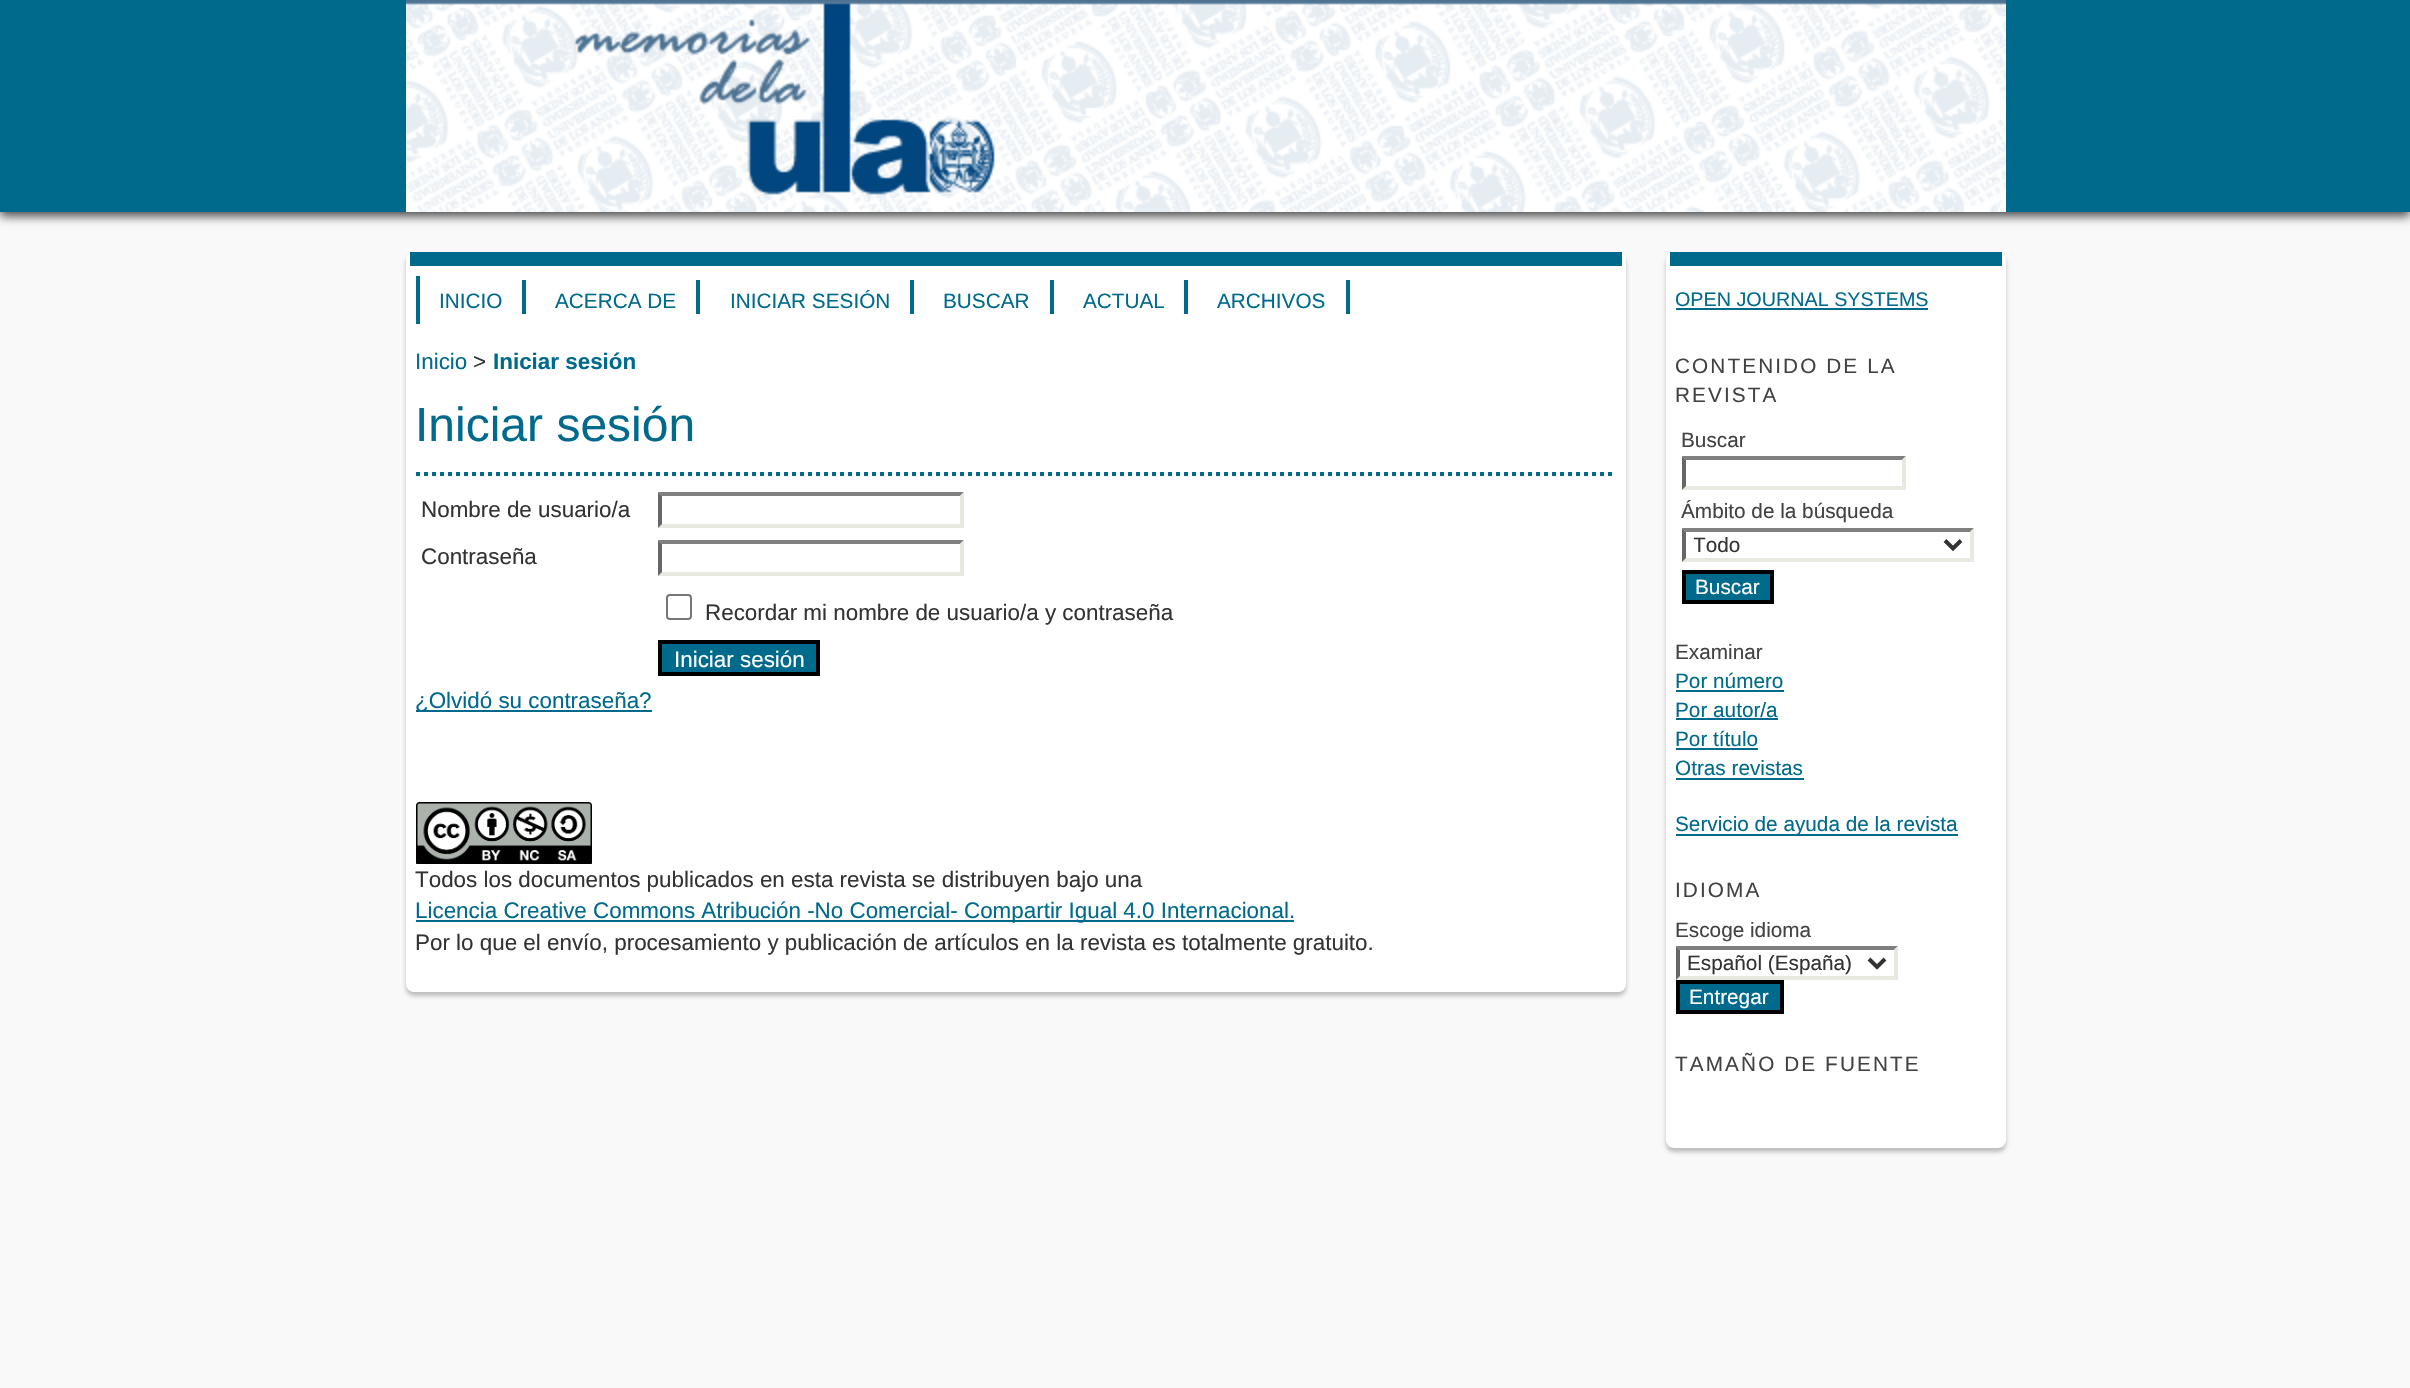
void draw(SkCanvas* canvas) {
  SkPaint paint;
  paint.setAntiAlias(true);
  auto face = [&](const char* family, int weight, float size, bool italic = false) {
    SkFontStyle style(weight, SkFontStyle::kNormal_Width,
      italic ? SkFontStyle::kItalic_Slant : SkFontStyle::kUpright_Slant);
    SkFont result(fontMgr->matchFamilyStyle(family, style), size);
    result.setSubpixel(true);
    return result;
  };
  auto writeSpaced = [&](const char* s, float x, float y, const SkFont& font, const SkPaint& ink, float letter, float word) {
    std::vector<SkGlyphID> glyphs(font.countText(s, strlen(s), SkTextEncoding::kUTF8));
    std::vector<float> xs(glyphs.size());
    font.textToGlyphs(s, strlen(s), SkTextEncoding::kUTF8, glyphs);
    font.getXPos(glyphs, xs, x);
    float extra = 0;
    for (size_t i = 0; i < glyphs.size(); i++) {
      xs[i] += extra;
      extra += letter + word * (glyphs[i] == font.unicharToGlyph(' '));
    }
    canvas->drawTextBlob(SkTextBlob::MakeFromPosHGlyphs(glyphs, xs, y, font), 0, 0, ink);
  };
  auto paste = [&](const char* path, float x, float y, float w, float h) {
    auto image = SkImages::DeferredFromEncodedData(SkData::MakeFromFileName(path));
    canvas->drawImageRect(image, SkRect::MakeXYWH(x, y, w, h), SkSamplingOptions());
  };
  auto shape = [&](const char* data, bool evenOdd = false) {
    SkPath result = *SkParsePath::FromSVGString(data);
    if (evenOdd) result.setFillType(SkPathFillType::kEvenOdd);
    return result;
  };
  canvas->clear(0xfff9f9f9);
  paint.setColor(0xff424242);
  paint.setMaskFilter(SkMaskFilter::MakeBlur(kNormal_SkBlurStyle, 5));
  canvas->drawRect(SkRect::MakeXYWH(0, 4, 2410, 212), paint);
  paint.setMaskFilter(nullptr);
  paint.setColor(0xff006a8c);
  canvas->drawRect(SkRect::MakeXYWH(0, 0, 2410, 212), paint);
  paste("img/1.png", 406, 0, 1600, 212);
  paint.setColor(0x3d000000);
  paint.setMaskFilter(SkMaskFilter::MakeBlur(kNormal_SkBlurStyle, 2));
  canvas->drawRoundRect(SkRect::MakeXYWH(406, 256, 1220, 740), 8, 8, paint);
  paint.setMaskFilter(nullptr);
  paint.setColor(0xffffffff);
  canvas->drawRoundRect(SkRect::MakeXYWH(406, 252, 1220, 740), 8, 8, paint);
  {
    const struct { float x, y, w, h; SkColor color; } items[] = {
      {410, 252, 1212, 14, 0xff006a8c},
      {416, 276, 4, 48, 0xff006a8c},
      {522, 280, 4, 34, 0xff006a8c},
      {696, 280, 4, 34, 0xff006a8c},
      {910, 280, 4, 34, 0xff006a8c},
      {1050, 280, 4, 34, 0xff006a8c},
      {1184, 280, 4, 34, 0xff006a8c},
      {1346, 280, 4, 34, 0xff006a8c},
    };
    for (auto [x, y, w, h, color] : items) {
      paint.setColor(color);
      canvas->drawRect(SkRect::MakeXYWH(x, y, w, h), paint);
    }
  }
  paint.setStroke(true);
  paint.setStrokeWidth(4);
  paint.setPathEffect(SkDashPathEffect::Make({{4, 4}}, 0));
  canvas->drawPath(shape("M416 474H1616"), paint);
  paint.setPathEffect(nullptr);
  paint.setStroke(false);
  paint.setColor(0xff7f7f7f);
  canvas->drawPath(shape("M658 492H964L960 496H662Z"), paint);
  paint.setColor(0xffe8e8e1);
  canvas->drawPath(shape("M964 492V528L960 524V496Z"), paint);
  canvas->drawPath(shape("M964 528H658L662 524H960Z"), paint);
  paint.setColor(0xff666666);
  canvas->drawPath(shape("M658 528V492L662 496V524Z"), paint);
  paint.setColor(0xff7f7f7f);
  canvas->drawPath(shape("M658 540H964L960 544H662Z"), paint);
  paint.setColor(0xffe8e8e1);
  canvas->drawPath(shape("M964 540V576L960 572V544Z"), paint);
  canvas->drawPath(shape("M964 576H658L662 572H960Z"), paint);
  paint.setColor(0xff666666);
  canvas->drawPath(shape("M658 576V540L662 544V572Z"), paint);
  paint.setStroke(true);
  paint.setStrokeWidth(2);
  paint.setColor(0xff767676);
  canvas->drawRoundRect(SkRect::MakeXYWH(667, 595, 24, 24), 3, 3, paint);
  paint.setStroke(false);
  paint.setColor(0xff006a8c);
  canvas->drawRect(SkRect::MakeXYWH(660, 642, 158, 32), paint);
  paint.setStroke(true);
  paint.setStrokeWidth(4);
  paint.setColor(0xff000000);
  canvas->drawRect(SkRect::MakeXYWH(660, 642, 158, 32), paint);
  paint.setStroke(false);
  paint.setColor(0xff006a8c);
  canvas->drawRect(SkRect::MakeXYWH(416, 710, 236, 2), paint);
  paste("img/2.png", 416, 802, 176, 62);
  canvas->drawRect(SkRect::MakeXYWH(416, 920, 878, 2), paint);
  paint.setColor(0x3d000000);
  paint.setMaskFilter(SkMaskFilter::MakeBlur(kNormal_SkBlurStyle, 2));
  canvas->drawRoundRect(SkRect::MakeXYWH(1666, 256, 340, 896), 8, 8, paint);
  paint.setMaskFilter(nullptr);
  paint.setColor(0xffffffff);
  canvas->drawRoundRect(SkRect::MakeXYWH(1666, 252, 340, 896), 8, 8, paint);
  paint.setColor(0xff006a8c);
  canvas->drawRect(SkRect::MakeXYWH(1670, 252, 332, 14), paint);
  canvas->drawRect(SkRect::MakeXYWH(1676, 308, 252, 2), paint);
  paint.setColor(0xff7f7f7f);
  canvas->drawPath(shape("M1682 456H1906L1902 460H1686Z"), paint);
  paint.setColor(0xffe8e8e1);
  canvas->drawPath(shape("M1906 456V490L1902 486V460Z"), paint);
  canvas->drawPath(shape("M1906 490H1682L1686 486H1902Z"), paint);
  paint.setColor(0xff666666);
  canvas->drawPath(shape("M1682 490V456L1686 460V486Z"), paint);
  paint.setColor(0xff7f7f7f);
  canvas->drawPath(shape("M1682 528H1974L1970 532H1686Z"), paint);
  paint.setColor(0xffe8e8e1);
  canvas->drawPath(shape("M1974 528V562L1970 558V532Z"), paint);
  canvas->drawPath(shape("M1974 562H1682L1686 558H1970Z"), paint);
  paint.setColor(0xff666666);
  canvas->drawPath(shape("M1682 562V528L1686 532V558Z"), paint);
  paint.setStroke(true);
  paint.setColor(0xff333333);
  canvas->drawPath(shape("M1945 540.5L1953 548.5L1961 540.5"), paint);
  paint.setStroke(false);
  paint.setColor(0xff006a8c);
  canvas->drawRect(SkRect::MakeXYWH(1684, 572, 88, 30), paint);
  paint.setStroke(true);
  paint.setColor(0xff000000);
  canvas->drawRect(SkRect::MakeXYWH(1684, 572, 88, 30), paint);
  paint.setStroke(false);
  {
    const struct { float x, y, w, h; SkColor color; } items[] = {
      {1676, 690, 108, 2, 0xff006a8c},
      {1676, 718, 102, 2, 0xff006a8c},
      {1676, 748, 82, 2, 0xff006a8c},
      {1676, 778, 128, 2, 0xff006a8c},
      {1676, 834, 282, 2, 0xff006a8c},
    };
    for (auto [x, y, w, h, color] : items) {
      paint.setColor(color);
      canvas->drawRect(SkRect::MakeXYWH(x, y, w, h), paint);
    }
  }
  paint.setColor(0xff7f7f7f);
  canvas->drawPath(shape("M1676 946H1898L1894 950H1680Z"), paint);
  paint.setColor(0xffe8e8e1);
  canvas->drawPath(shape("M1898 946V980L1894 976V950Z"), paint);
  canvas->drawPath(shape("M1898 980H1676L1680 976H1894Z"), paint);
  paint.setColor(0xff666666);
  canvas->drawPath(shape("M1676 980V946L1680 950V976Z"), paint);
  paint.setStroke(true);
  paint.setColor(0xff333333);
  canvas->drawPath(shape("M1869 959L1877 967L1885 959"), paint);
  paint.setStroke(false);
  paint.setColor(0xff006a8c);
  canvas->drawRect(SkRect::MakeXYWH(1678, 982, 104, 30), paint);
  paint.setStroke(true);
  paint.setColor(0xff000000);
  canvas->drawRect(SkRect::MakeXYWH(1678, 982, 104, 30), paint);
  auto f0 = face("Liberation Sans", 400, 20.75f);
  paint.setStroke(false);
  paint.setColor(0xff006a8c);
  {
    const struct { const char* s; float x, y; } items[] = {
      {"INICIO", 439, 308},
      {"ACERCA DE", 555, 308},
      {"INICIAR SESIÓN", 730, 308},
      {"BUSCAR", 943, 308},
      {"ACTUAL", 1083, 308},
      {"ARCHIVOS", 1217, 308},
    };
    for (auto [s, x, y] : items) {
      canvas->drawString(s, x, y, f0, paint);
    }
  }
  auto f1 = face("Liberation Sans", 400, 22.4f);
  canvas->drawString("Inicio", 415, 369, f1, paint);
  paint.setColor(0xff333333);
  canvas->drawString(">", 473, 369, f1, paint);
  auto f2 = face("Liberation Sans", 700, 22.4f);
  paint.setColor(0xff006a8c);
  canvas->drawString("Iniciar sesión", 493, 369, f2, paint);
  auto f3 = face("Liberation Sans", 400, 48);
  canvas->drawString("Iniciar sesión", 415, 441, f3, paint);
  paint.setColor(0xff333333);
  {
    const struct { const char* s; float x, y; } items[] = {
      {"Nombre de usuario/a", 421, 517},
      {"Contraseña", 421, 564},
      {"Recordar mi nombre de usuario/a y contraseña", 705, 620},
    };
    for (auto [s, x, y] : items) {
      canvas->drawString(s, x, y, f1, paint);
    }
  }
  paint.setColor(0xffffffff);
  canvas->drawString("Iniciar sesión", 674, 667, f1, paint);
  paint.setColor(0xff006a8c);
  canvas->drawString("¿Olvidó su contraseña?", 415, 708, f1, paint);
  paint.setColor(0xff333333);
  canvas->drawString("Todos los documentos publicados en esta revista se distribuyen bajo una", 415, 887, f1, paint);
  paint.setColor(0xff006a8c);
  canvas->drawString("Licencia Creative Commons Atribución -No Comercial- Compartir Igual 4.0 Internacional.", 415, 918, f1, paint);
  paint.setColor(0xff333333);
  canvas->drawString("Por lo que el envío, procesamiento y publicación de artículos en la revista es totalmente gratuito.", 415, 950, f1, paint);
  auto f4 = face("Liberation Sans", 400, 19.75f);
  paint.setColor(0xff006a8c);
  canvas->drawString("OPEN JOURNAL SYSTEMS", 1675, 306, f4, paint);
  paint.setColor(0xff424242);
  writeSpaced("CONTENIDO DE LA", 1675, 373, f0, paint, 2.1f, 0);
  writeSpaced("REVISTA", 1675, 402, f0, paint, 2.1f, 0);
  canvas->drawString("Buscar", 1681, 447, f0, paint);
  canvas->drawString("Ámbito de la búsqueda", 1681, 518, f0, paint);
  canvas->save();
  canvas->clipRect(SkRect::MakeXYWH(1694, 532, 244, 26));
  paint.setColor(0xff333333);
  canvas->drawString("Todo", 1693, 552, f0, paint);
  canvas->restore();
  paint.setColor(0xffffffff);
  canvas->drawString("Buscar", 1695, 594, f0, paint);
  paint.setColor(0xff424242);
  canvas->drawString("Examinar", 1675, 659, f0, paint);
  paint.setColor(0xff006a8c);
  {
    const struct { const char* s; float x, y; } items[] = {
      {"Por número", 1675, 688},
      {"Por autor/a", 1675, 717},
      {"Por título", 1675, 746},
      {"Otras revistas", 1675, 775},
      {"Servicio de ayuda de la revista", 1675, 831},
    };
    for (auto [s, x, y] : items) {
      canvas->drawString(s, x, y, f0, paint);
    }
  }
  paint.setColor(0xff424242);
  writeSpaced("IDIOMA", 1675, 897, f0, paint, 2.1f, 0);
  canvas->drawString("Escoge idioma", 1675, 937, f0, paint);
  paint.setColor(0xff333333);
  canvas->drawString("Español (España)", 1687, 970, f0, paint);
  paint.setColor(0xffffffff);
  canvas->drawString("Entregar", 1689, 1004, f0, paint);
  paint.setColor(0xff424242);
  writeSpaced("TAMAÑO DE FUENTE", 1675, 1071, f0, paint, 2.1f, 0);
}
